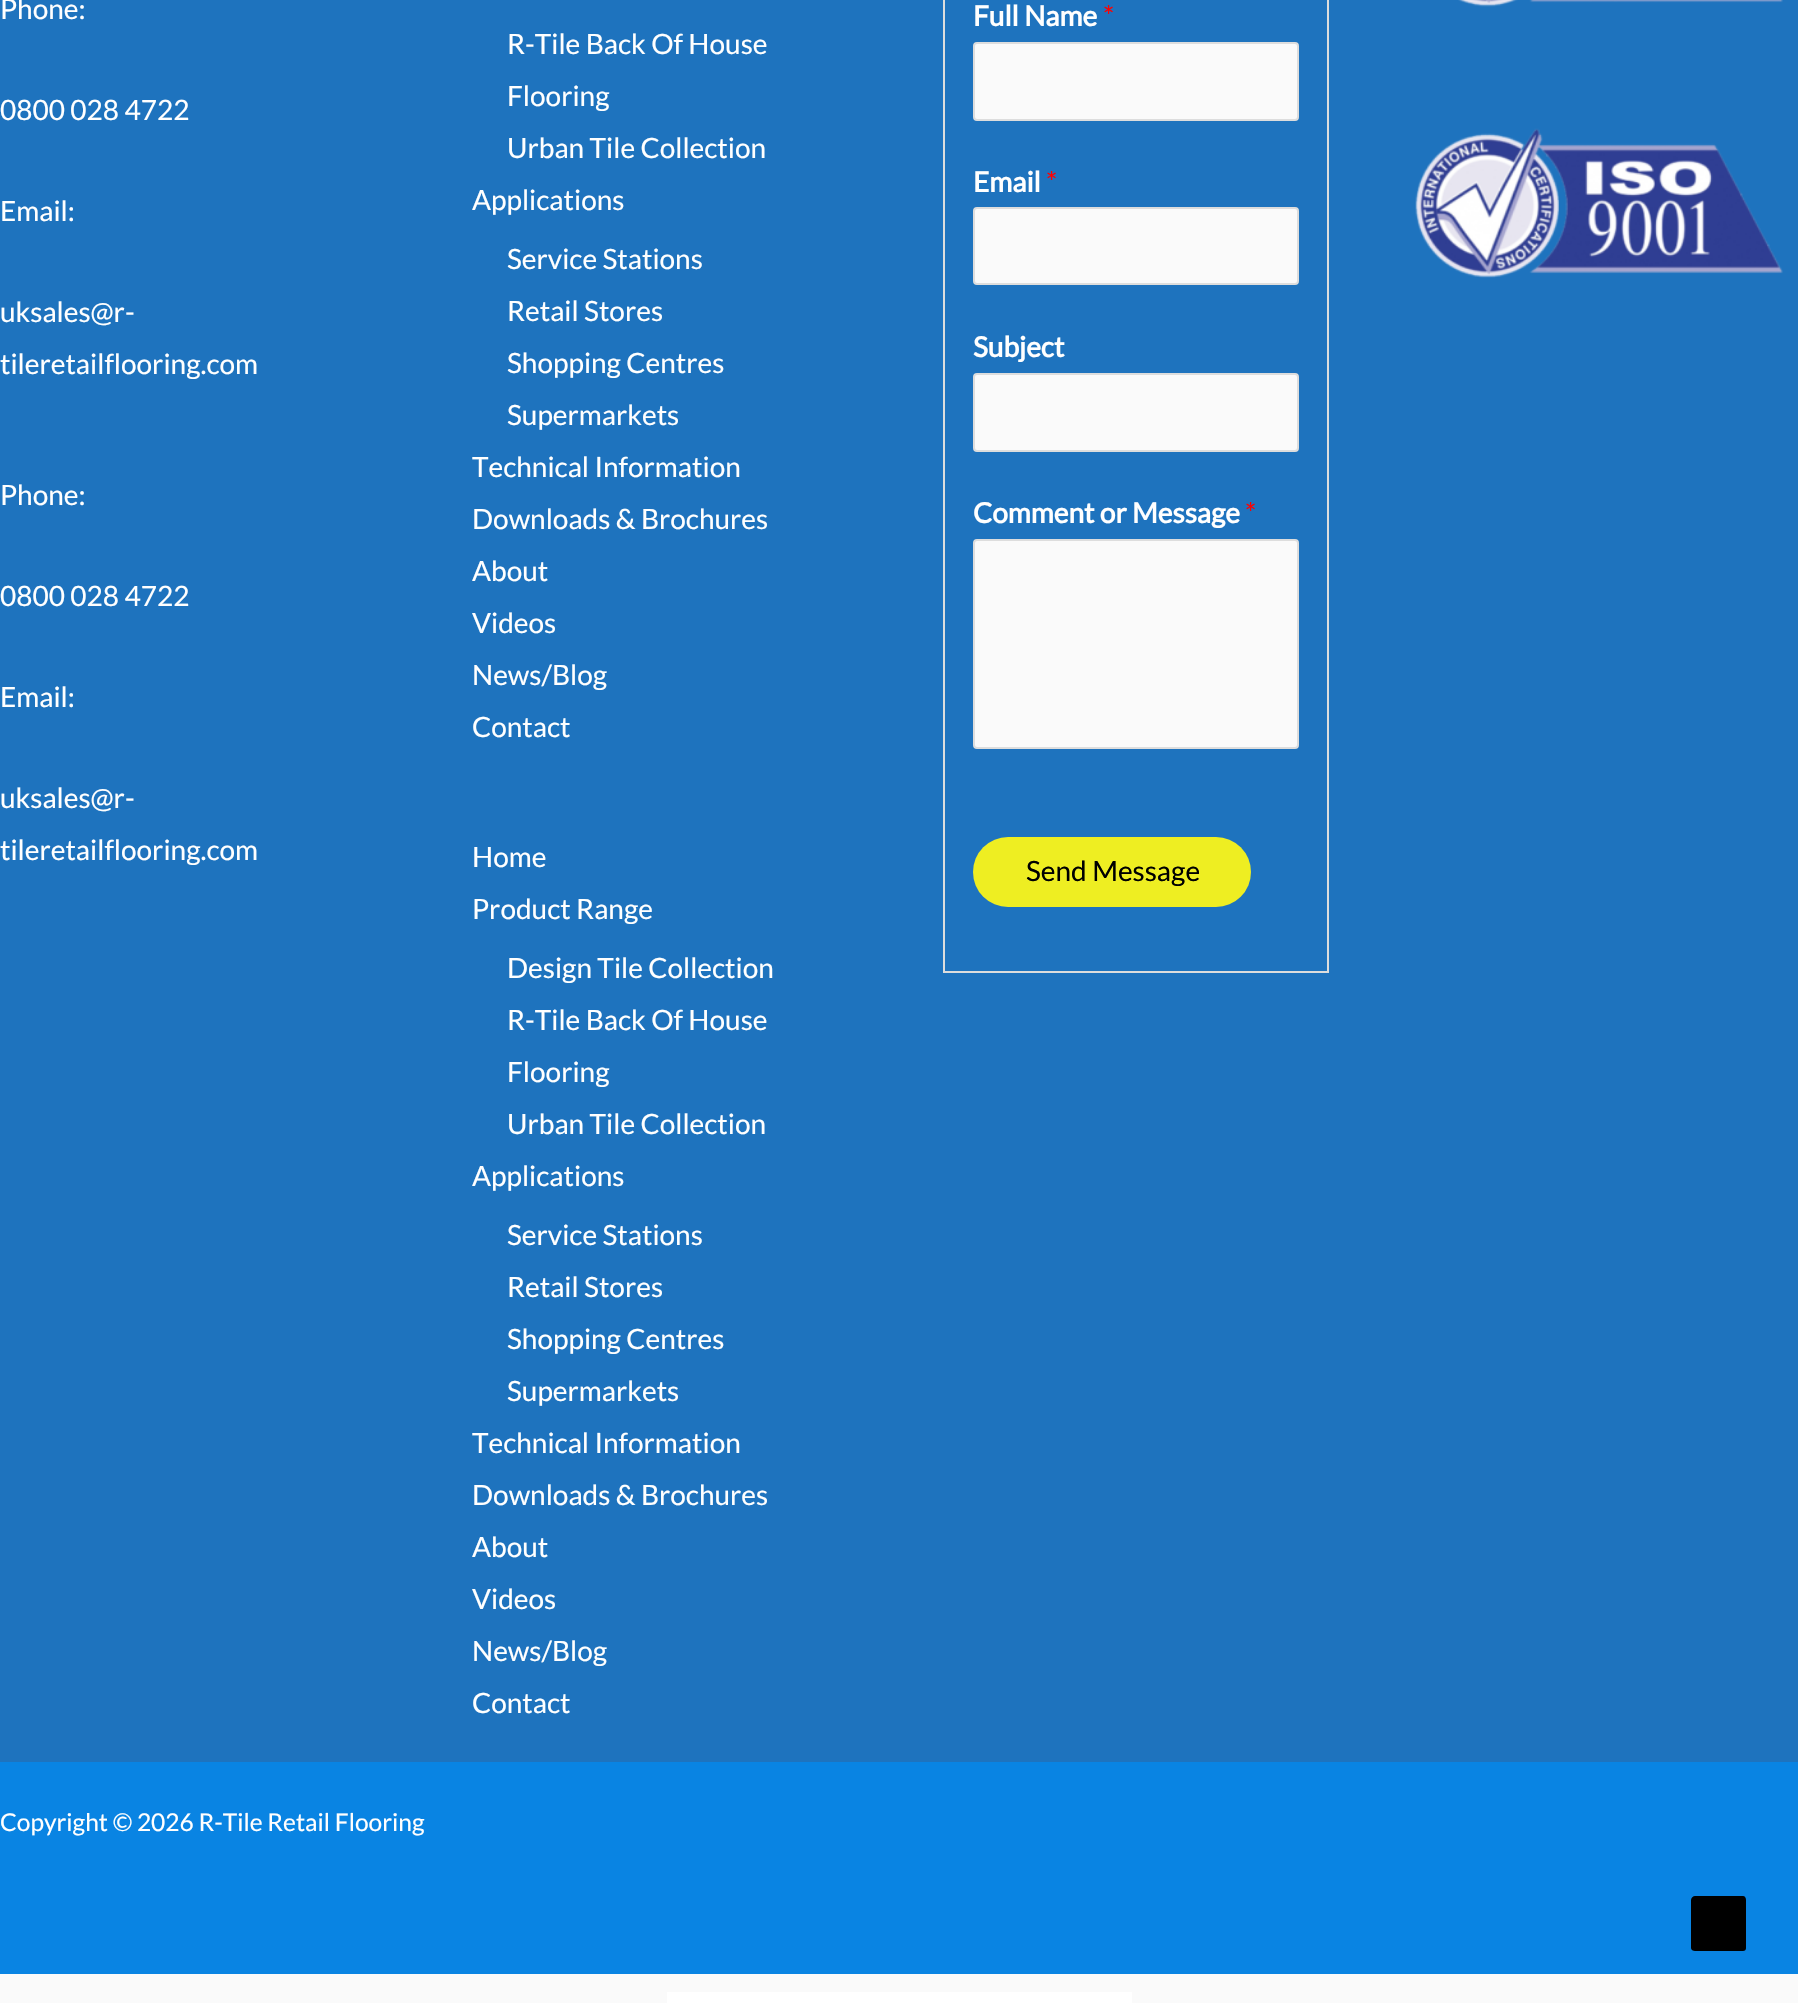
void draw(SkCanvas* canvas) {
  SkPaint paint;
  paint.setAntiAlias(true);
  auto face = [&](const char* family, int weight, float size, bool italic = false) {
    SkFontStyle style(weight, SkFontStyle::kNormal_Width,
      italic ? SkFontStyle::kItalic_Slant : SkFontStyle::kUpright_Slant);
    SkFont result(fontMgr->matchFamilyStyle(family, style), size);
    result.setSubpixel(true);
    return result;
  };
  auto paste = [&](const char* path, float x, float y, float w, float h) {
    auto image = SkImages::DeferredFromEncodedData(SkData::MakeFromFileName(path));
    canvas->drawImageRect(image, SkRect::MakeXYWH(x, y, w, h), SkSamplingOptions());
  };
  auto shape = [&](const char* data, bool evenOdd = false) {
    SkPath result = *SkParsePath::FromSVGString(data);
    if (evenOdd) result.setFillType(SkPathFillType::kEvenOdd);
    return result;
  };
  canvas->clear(0xfffafafa);
  {
    const struct { float x, y, w, h; SkColor color; } items[] = {
      {0, 0, 1798, 1762, 0xff1e73be},
      {943, 0, 2, 973, 0xffdddddd},
      {1327, 0, 2, 973, 0xffdddddd},
      {945, 971, 383, 2, 0xffdddddd},
    };
    for (auto [x, y, w, h, color] : items) {
      paint.setColor(color);
      canvas->drawRect(SkRect::MakeXYWH(x, y, w, h), paint);
    }
  }
  paint.setColor(0xfffafafa);
  canvas->drawRoundRect(SkRect::MakeXYWH(974, 43, 324, 77), 3, 3, paint);
  paint.setStroke(true);
  paint.setStrokeWidth(2);
  paint.setColor(0xffdddddd);
  canvas->drawRoundRect(SkRect::MakeXYWH(974, 43, 324, 77), 3, 3, paint);
  paint.setStroke(false);
  paint.setColor(0xfffafafa);
  canvas->drawRoundRect(SkRect::MakeXYWH(974, 208, 324, 76), 3, 3, paint);
  paint.setStroke(true);
  paint.setColor(0xffdddddd);
  canvas->drawRoundRect(SkRect::MakeXYWH(974, 208, 324, 76), 3, 3, paint);
  paint.setStroke(false);
  paint.setColor(0xfffafafa);
  canvas->drawRoundRect(SkRect::MakeXYWH(974, 374, 324, 77), 3, 3, paint);
  paint.setStroke(true);
  paint.setColor(0xffdddddd);
  canvas->drawRoundRect(SkRect::MakeXYWH(974, 374, 324, 77), 3, 3, paint);
  paint.setStroke(false);
  paint.setColor(0xfffafafa);
  canvas->drawRoundRect(SkRect::MakeXYWH(974, 540, 324, 208), 3, 3, paint);
  paint.setStroke(true);
  paint.setColor(0xffdddddd);
  canvas->drawRoundRect(SkRect::MakeXYWH(974, 540, 324, 208), 3, 3, paint);
  paint.setStroke(false);
  paint.setColor(0xffeeee22);
  canvas->drawRoundRect(SkRect::MakeXYWH(973, 837, 278, 70), 35, 35, paint);
  paste("img/1.png", 1458, 0, 325, 7);
  paste("img/2.png", 1415, 128, 368, 150);
  paint.setColor(0xff0984e3);
  canvas->drawRect(SkRect::MakeXYWH(0, 1762, 1798, 212), paint);
  paint.setColor(0xff000000);
  canvas->drawPath(shape("M1743 1951H1695C1693 1951 1691 1950 1691 1948V1900C1691 1898 1693 1896 1695 1896H1743C1745 1896 1746 1898 1746 1900V1948C1746 1950 1745 1951 1743 1951Z"), paint);
  paint.setColor(0xffffffff);
  canvas->drawRect(SkRect::MakeXYWH(667, 1992, 465, 11), paint);
  auto f0 = face("Lato", 400, 28);
  {
    const struct { const char* s; float x, y; } items[] = {
      {"Phone:", 0, 19},
      {"0800 028 4722", 0, 120},
      {"Email:", 0, 221},
      {"uksales@r-", 0, 322},
      {"tileretailflooring.com", 0, 374},
      {"Phone:", 0, 505},
      {"0800 028 4722", 0, 606},
      {"Email:", 0, 707},
      {"uksales@r-", 0, 808},
      {"tileretailflooring.com", 0, 860},
      {"R-Tile Back Of House", 507, 54},
      {"Flooring", 507, 106},
      {"Urban Tile Collection", 507, 158},
      {"Applications", 472, 210},
      {"Service Stations", 507, 269},
      {"Retail Stores", 507, 321},
      {"Shopping Centres", 507, 373},
      {"Supermarkets", 507, 425},
      {"Technical Information", 472, 477},
      {"Downloads & Brochures", 472, 529},
      {"About", 472, 581},
      {"Videos", 472, 633},
      {"News/Blog", 472, 685},
      {"Contact", 472, 737},
      {"Home", 472, 867},
      {"Product Range", 472, 919},
      {"Design Tile Collection", 507, 978},
      {"R-Tile Back Of House", 507, 1030},
      {"Flooring", 507, 1082},
      {"Urban Tile Collection", 507, 1134},
      {"Applications", 472, 1186},
      {"Service Stations", 507, 1245},
      {"Retail Stores", 507, 1297},
      {"Shopping Centres", 507, 1349},
      {"Supermarkets", 507, 1401},
      {"Technical Information", 472, 1453},
      {"Downloads & Brochures", 472, 1505},
      {"About", 472, 1557},
      {"Videos", 472, 1609},
      {"News/Blog", 472, 1661},
      {"Contact", 472, 1713},
    };
    for (auto [s, x, y] : items) {
      canvas->drawString(s, x, y, f0, paint);
    }
  }
  auto f1 = face("Lato", 700, 28);
  canvas->drawString("Full Name", 973, 26, f1, paint);
  paint.setColor(0xffff0000);
  canvas->drawString("*", 1103, 26, f0, paint);
  paint.setColor(0xffffffff);
  canvas->drawString("Email", 973, 192, f1, paint);
  paint.setColor(0xffff0000);
  canvas->drawString("*", 1046, 192, f0, paint);
  paint.setColor(0xffffffff);
  canvas->drawString("Subject", 973, 357, f1, paint);
  canvas->drawString("Comment or Message", 973, 523, f1, paint);
  paint.setColor(0xffff0000);
  canvas->drawString("*", 1245, 523, f0, paint);
  paint.setColor(0xff000000);
  canvas->drawString("Send Message", 1026, 881, f0, paint);
  auto f2 = face("Lato", 400, 24.5f);
  paint.setColor(0xffffffff);
  canvas->drawString("Copyright © 2026 R-Tile Retail Flooring", 0, 1831, f2, paint);
}
